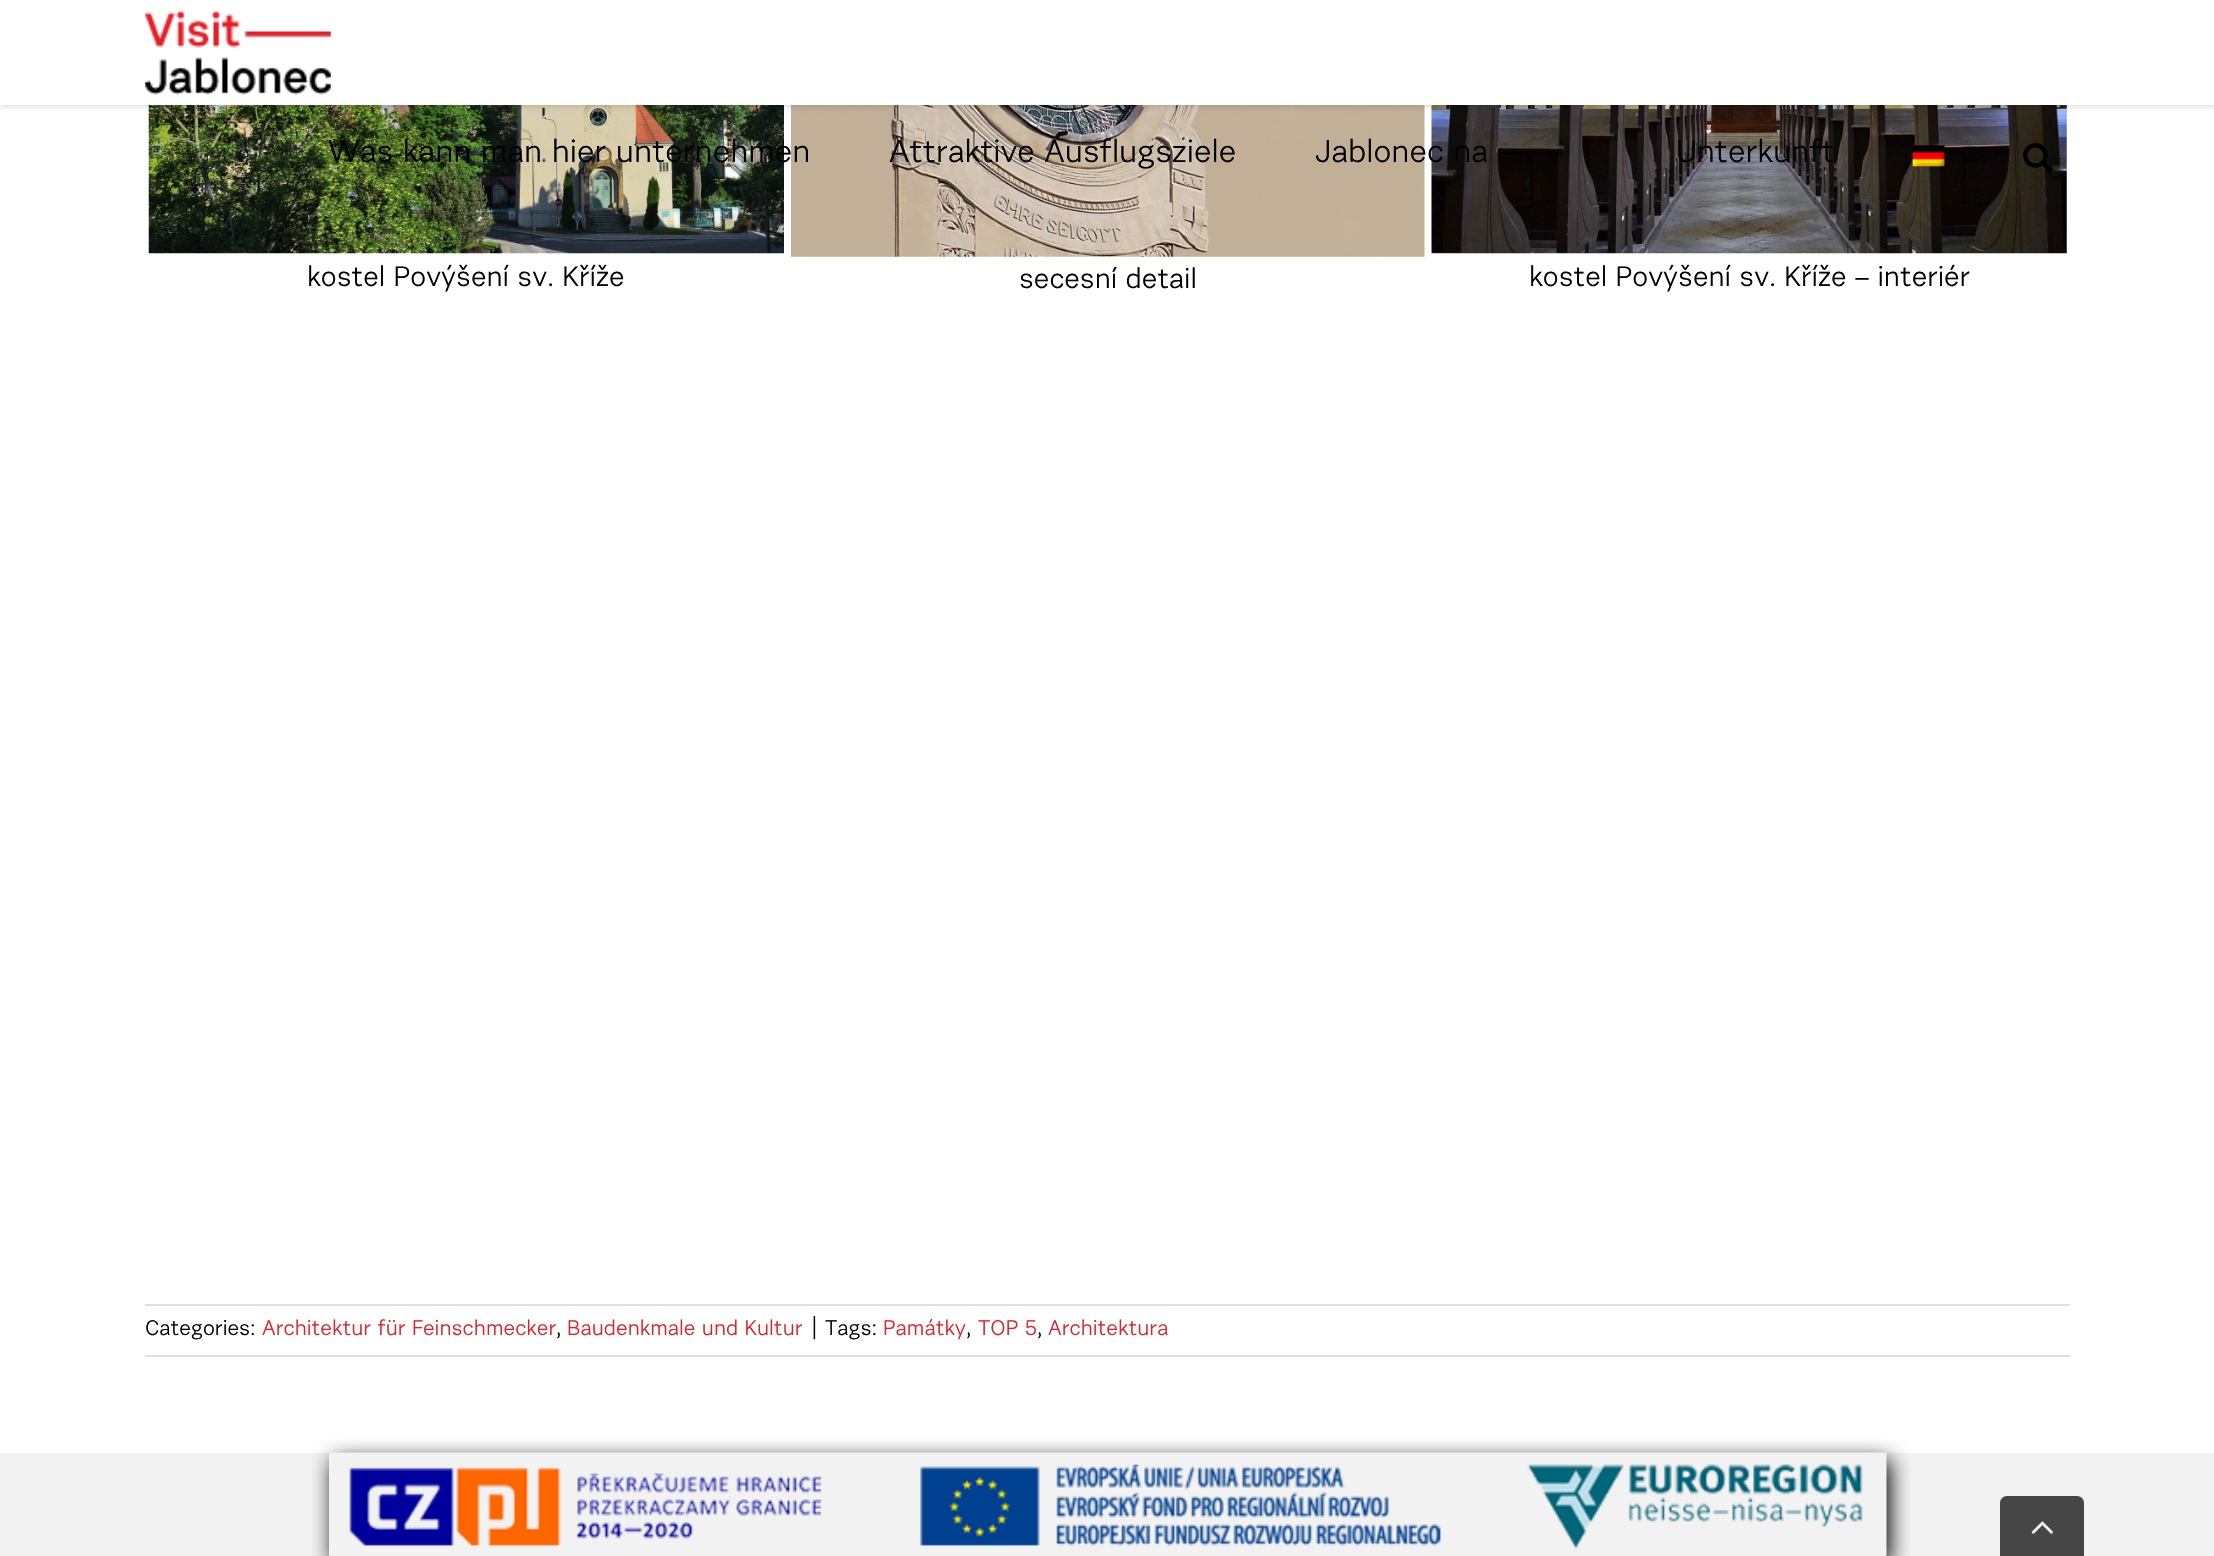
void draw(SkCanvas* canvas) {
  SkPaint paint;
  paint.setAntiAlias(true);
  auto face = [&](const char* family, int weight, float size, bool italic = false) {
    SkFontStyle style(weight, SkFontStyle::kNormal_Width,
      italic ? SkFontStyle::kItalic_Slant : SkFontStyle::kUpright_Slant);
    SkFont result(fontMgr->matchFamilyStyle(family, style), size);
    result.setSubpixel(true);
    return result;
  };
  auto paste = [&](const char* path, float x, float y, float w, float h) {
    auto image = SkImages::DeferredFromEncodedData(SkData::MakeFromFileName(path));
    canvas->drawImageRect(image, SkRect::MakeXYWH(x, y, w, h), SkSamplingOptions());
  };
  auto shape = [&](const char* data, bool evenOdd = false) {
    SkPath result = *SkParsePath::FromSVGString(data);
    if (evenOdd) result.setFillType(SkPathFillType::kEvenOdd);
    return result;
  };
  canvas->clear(0xffffffff);
  paste("img/4.png", 148, 105, 636, 149);
  paste("img/5.png", 791, 105, 634, 152);
  paste("img/6.png", 1431, 105, 636, 149);
  paint.setColor(0x1f000000);
  paint.setMaskFilter(SkMaskFilter::MakeBlur(kNormal_SkBlurStyle, 2.5f));
  canvas->drawRect(SkRect::MakeXYWH(0, 2, 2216, 105), paint);
  paint.setMaskFilter(nullptr);
  paint.setColor(0xffffffff);
  canvas->drawRect(SkRect::MakeXYWH(0, 0, 2214, 105), paint);
  paste("img/1.png", 145, 10, 186, 85);
  paste("img/2.png", 1912, 144, 33, 23);
  paste("img/3.png", 2023, 143, 29, 29);
  {
    const struct { float x, y, w, h; SkColor color; } items[] = {
      {145, 1304, 1925, 2, 0xffe0dede},
      {145, 1355, 1925, 2, 0xffe0dede},
      {0, 1453, 2214, 103, 0xfff2f2f2},
    };
    for (auto [x, y, w, h, color] : items) {
      paint.setColor(color);
      canvas->drawRect(SkRect::MakeXYWH(x, y, w, h), paint);
    }
  }
  paste("img/7.png", 312, 1439, 1598, 117);
  paint.setColor(0xff464646);
  canvas->drawPath(shape("M2007 1496H2077C2081 1496 2084 1499 2084 1503V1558H2000V1503C2000 1499 2003 1496 2007 1496Z"), paint);
  paste("img/8.png", 2031, 1521, 22, 13);
  auto f0 = face("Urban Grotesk", 400, 31.5f);
  paint.setColor(0xff000000);
  {
    const struct { const char* s; float x, y; } items[] = {
      {"Was kann man hier unternehmen", 328, 162},
      {"Attraktive Ausflugsziele", 889, 162},
      {"Jablonec na", 1315, 162},
      {"Unterkunft", 1676, 162},
    };
    for (auto [s, x, y] : items) {
      canvas->drawString(s, x, y, f0, paint);
    }
  }
  auto f1 = face("Urban Grotesk", 400, 28);
  {
    const struct { const char* s; float x, y; } items[] = {
      {"kostel Povýšení sv. Kříže", 307, 286},
      {"secesní detail", 1019, 288},
      {"kostel Povýšení sv. Kříže – interiér", 1529, 286},
    };
    for (auto [s, x, y] : items) {
      canvas->drawString(s, x, y, f1, paint);
    }
  }
  auto f2 = face("Urban Grotesk", 400, 21);
  canvas->drawString("Categories:", 145, 1335, f2, paint);
  paint.setColor(0xffe41e28);
  canvas->drawString("Architektur für Feinschmecker", 262, 1335, f2, paint);
  paint.setColor(0xff000000);
  canvas->drawString(",", 556, 1335, f2, paint);
  paint.setColor(0xffe41e28);
  canvas->drawString("Baudenkmale und Kultur", 567, 1335, f2, paint);
  paint.setColor(0xff000000);
  canvas->drawString("|", 812, 1335, f2, paint);
  canvas->drawString("Tags:", 825, 1335, f2, paint);
  paint.setColor(0xffe41e28);
  canvas->drawString("Památky", 883, 1335, f2, paint);
  paint.setColor(0xff000000);
  canvas->drawString(",", 966, 1335, f2, paint);
  paint.setColor(0xffe41e28);
  canvas->drawString("TOP 5", 978, 1335, f2, paint);
  paint.setColor(0xff000000);
  canvas->drawString(",", 1037, 1335, f2, paint);
  paint.setColor(0xffe41e28);
  canvas->drawString("Architektura", 1048, 1335, f2, paint);
}
